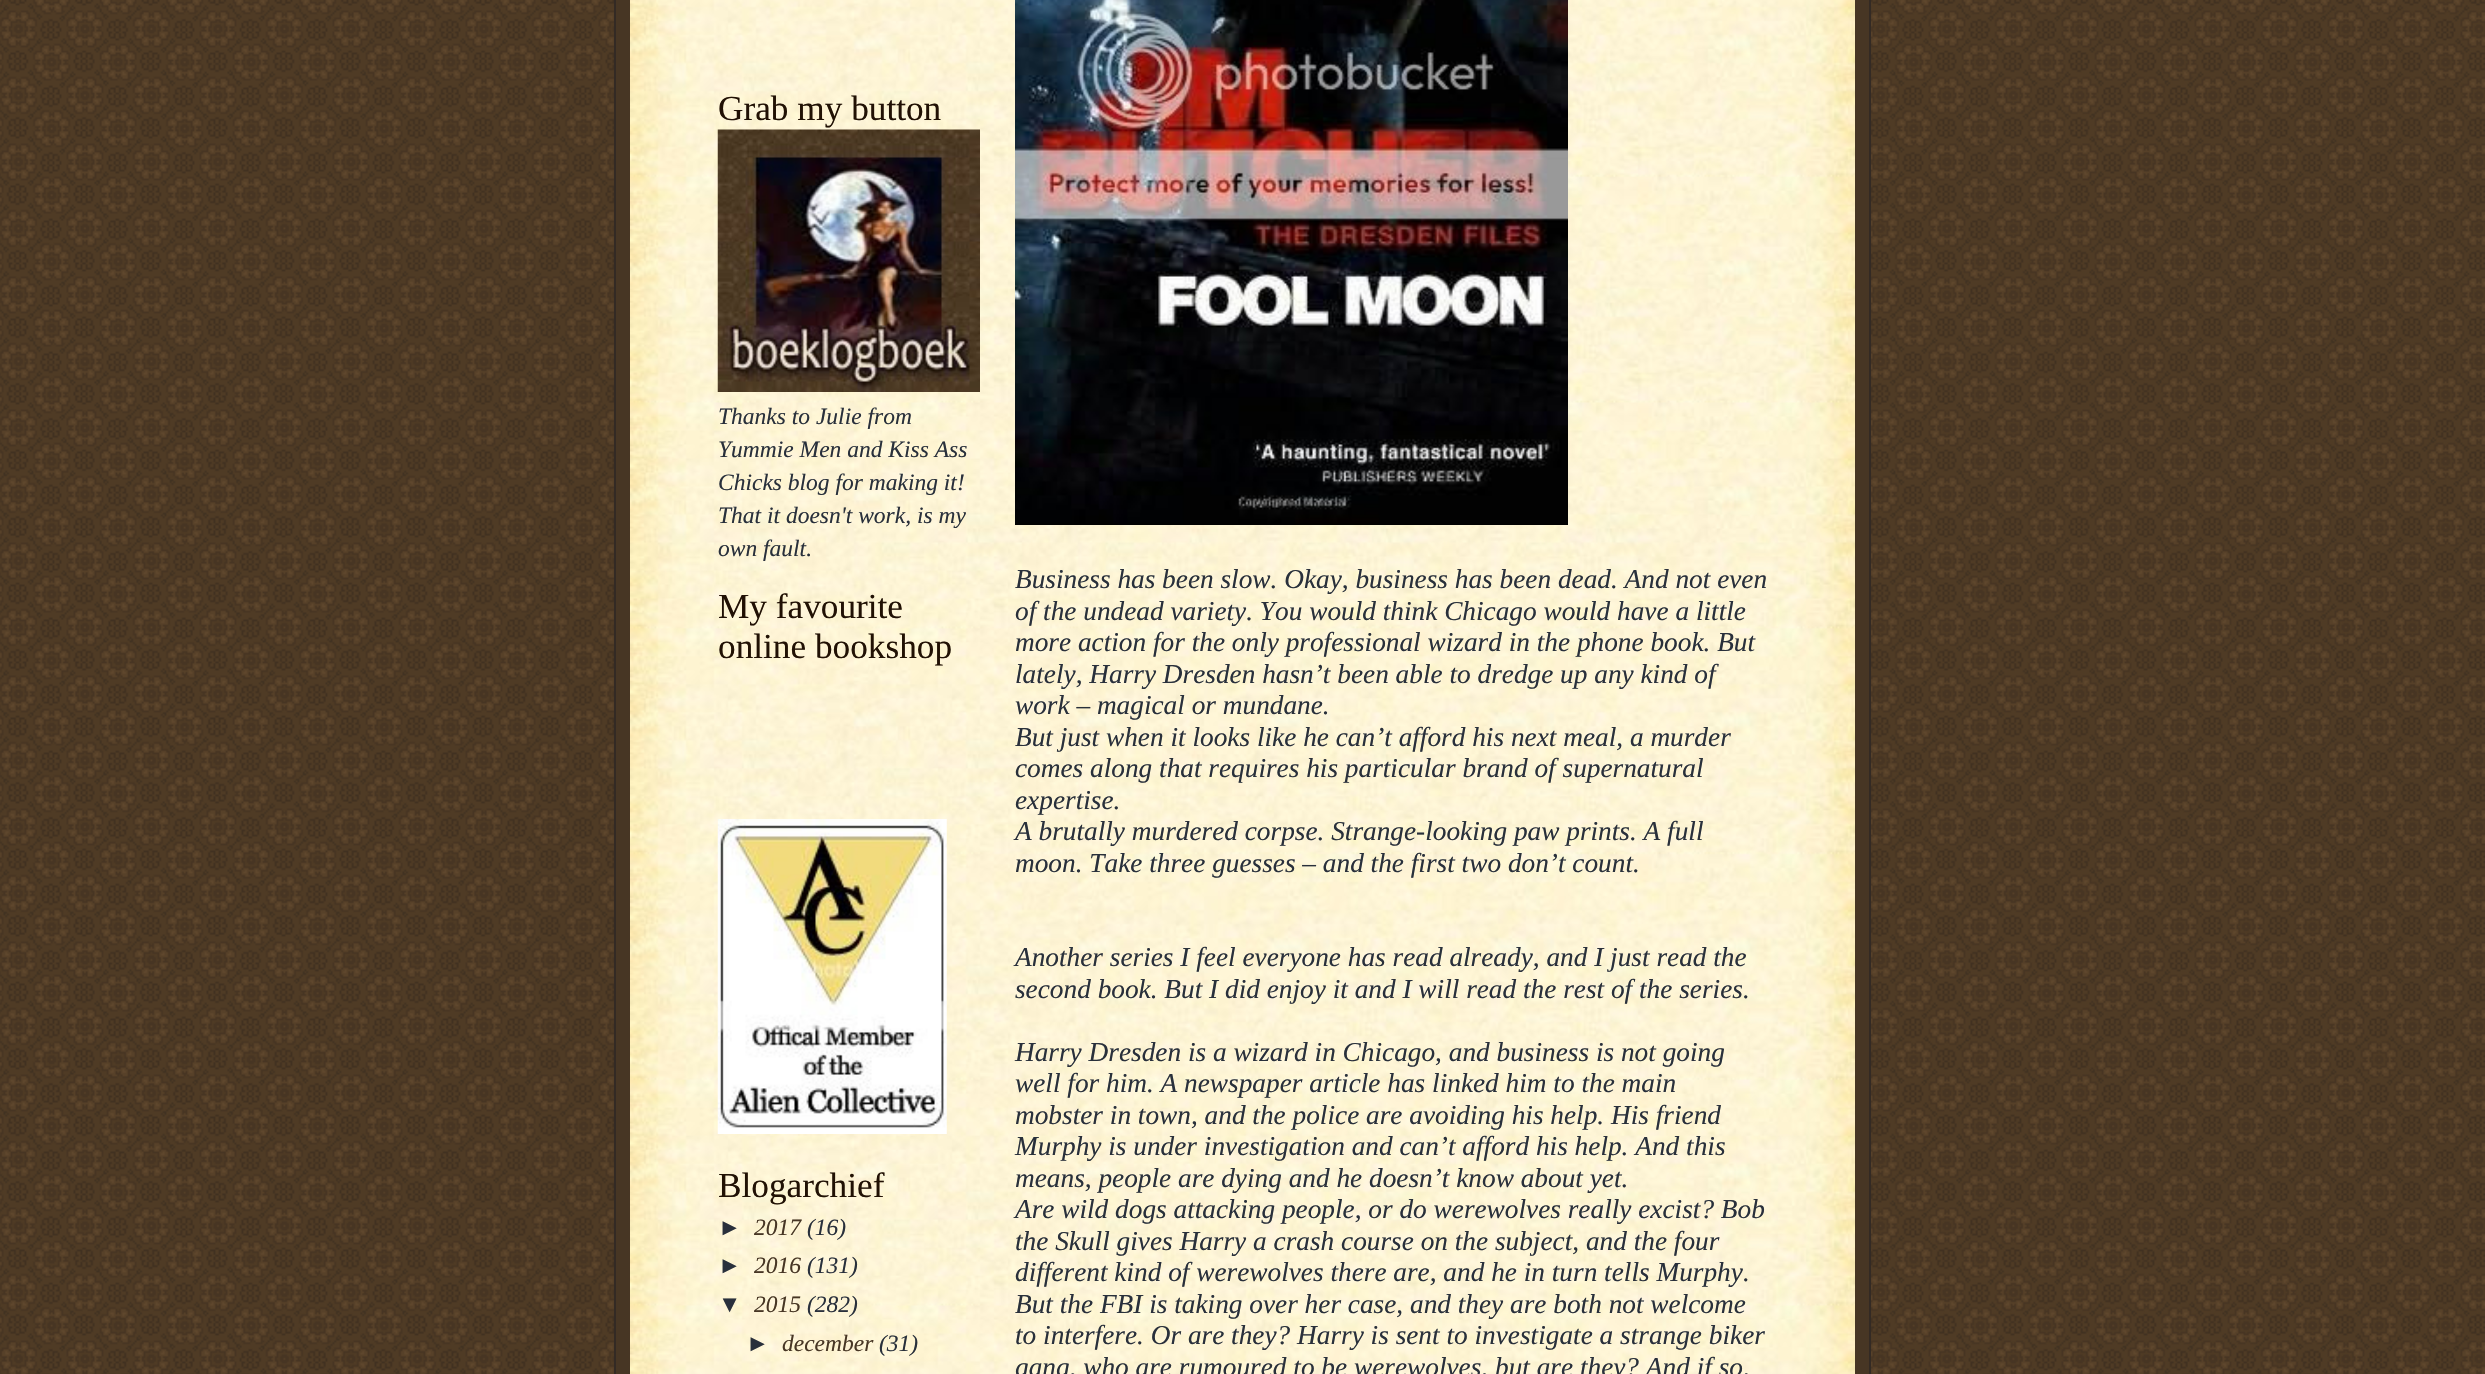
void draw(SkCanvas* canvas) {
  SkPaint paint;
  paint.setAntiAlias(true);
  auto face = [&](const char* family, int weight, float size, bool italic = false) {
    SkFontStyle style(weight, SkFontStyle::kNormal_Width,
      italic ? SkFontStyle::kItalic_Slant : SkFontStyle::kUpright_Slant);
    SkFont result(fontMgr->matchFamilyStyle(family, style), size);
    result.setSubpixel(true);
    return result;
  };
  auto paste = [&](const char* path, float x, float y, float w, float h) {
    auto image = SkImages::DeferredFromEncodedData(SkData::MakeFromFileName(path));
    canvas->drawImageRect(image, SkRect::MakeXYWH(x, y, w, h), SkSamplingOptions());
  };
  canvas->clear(0xffffffff);
  paste("img/1.png", 0, 0, 2485, 1374);
  {
    const struct { float x, y, w, h; SkColor color; } items[] = {
      {616, 0, 1253, 1374, 0xff473624},
      {1869, 0, 2, 1374, 0xff332a24},
      {614, 0, 2, 1374, 0xff332a24},
    };
    for (auto [x, y, w, h, color] : items) {
      paint.setColor(color);
      canvas->drawRect(SkRect::MakeXYWH(x, y, w, h), paint);
    }
  }
  paste("img/2.png", 630, 0, 1225, 1374);
  paste("img/3.png", 717, 129, 263, 263);
  paste("img/4.png", 717, 819, 230, 315);
  paste("img/5.png", 1015, 0, 553, 525);
  auto f0 = face("Liberation Serif", 400, 35.25f);
  paint.setColor(0xff211104);
  canvas->drawString("Grab my button", 718, 120, f0, paint);
  auto f1 = face("Liberation Serif", 400, 23.5f, true);
  paint.setColor(0xff29303b);
  {
    const struct { const char* s; float x, y; } items[] = {
      {"Thanks to Julie from", 718, 424},
      {"Yummie Men and Kiss Ass", 718, 457},
      {"Chicks blog for making it!", 718, 490},
      {"That it doesn't work, is my", 718, 523},
      {"own fault.", 718, 556},
    };
    for (auto [s, x, y] : items) {
      canvas->drawString(s, x, y, f1, paint);
    }
  }
  paint.setColor(0xff211104);
  {
    const struct { const char* s; float x, y; } items[] = {
      {"My favourite", 718, 618},
      {"online bookshop", 718, 658},
      {"Blogarchief", 718, 1197},
    };
    for (auto [s, x, y] : items) {
      canvas->drawString(s, x, y, f0, paint);
    }
  }
  auto f2 = face("Liberation Sans", 400, 23.5f, true);
  paint.setColor(0xff29303b);
  canvas->drawString("►", 718, 1235, f2, paint);
  paint.setColor(0xff473624);
  canvas->drawString("2017", 754, 1235, f1, paint);
  paint.setColor(0xff29303b);
  canvas->drawString("(16)", 807, 1235, f1, paint);
  canvas->drawString("►", 718, 1273, f2, paint);
  paint.setColor(0xff473624);
  canvas->drawString("2016", 754, 1273, f1, paint);
  paint.setColor(0xff29303b);
  canvas->drawString("(131)", 807, 1273, f1, paint);
  canvas->drawString("▼", 718, 1312, f2, paint);
  paint.setColor(0xff473624);
  canvas->drawString("2015", 754, 1312, f1, paint);
  paint.setColor(0xff29303b);
  canvas->drawString("(282)", 807, 1312, f1, paint);
  canvas->drawString("►", 746, 1351, f2, paint);
  paint.setColor(0xff473624);
  canvas->drawString("december", 782, 1351, f1, paint);
  paint.setColor(0xff29303b);
  canvas->drawString("(31)", 879, 1351, f1, paint);
  auto f3 = face("Liberation Serif", 400, 27.3f, true);
  {
    const struct { const char* s; float x, y; } items[] = {
      {"Business has been slow. Okay, business has been dead. And not even", 1015, 588},
      {"of the undead variety. You would think Chicago would have a little", 1015, 620},
      {"more action for the only professional wizard in the phone book. But", 1015, 651},
      {"lately, Harry Dresden hasn’t been able to dredge up any kind of", 1015, 683},
      {"work – magical or mundane.", 1015, 714},
      {"But just when it looks like he can’t afford his next meal, a murder", 1015, 746},
      {"comes along that requires his particular brand of supernatural", 1015, 777},
      {"expertise.", 1015, 809},
      {"A brutally murdered corpse. Strange-looking paw prints. A full", 1015, 840},
      {"moon. Take three guesses – and the first two don’t count.", 1015, 872},
      {"Another series I feel everyone has read already, and I just read the", 1015, 966},
      {"second book. But I did enjoy it and I will read the rest of the series.", 1015, 998},
      {"Harry Dresden is a wizard in Chicago, and business is not going", 1015, 1061},
      {"well for him. A newspaper article has linked him to the main", 1015, 1092},
      {"mobster in town, and the police are avoiding his help. His friend", 1015, 1124},
      {"Murphy is under investigation and can’t afford his help. And this", 1015, 1155},
      {"means, people are dying and he doesn’t know about yet.", 1015, 1187},
      {"Are wild dogs attacking people, or do werewolves really excist? Bob", 1015, 1218},
      {"the Skull gives Harry a crash course on the subject, and the four", 1015, 1250},
      {"different kind of werewolves there are, and he in turn tells Murphy.", 1015, 1281},
      {"But the FBI is taking over her case, and they are both not welcome", 1015, 1313},
      {"to interfere. Or are they? Harry is sent to investigate a strange biker", 1015, 1344},
      {"gang, who are rumoured to be werewolves, but are they? And if so,", 1015, 1376},
    };
    for (auto [s, x, y] : items) {
      canvas->drawString(s, x, y, f3, paint);
    }
  }
}
